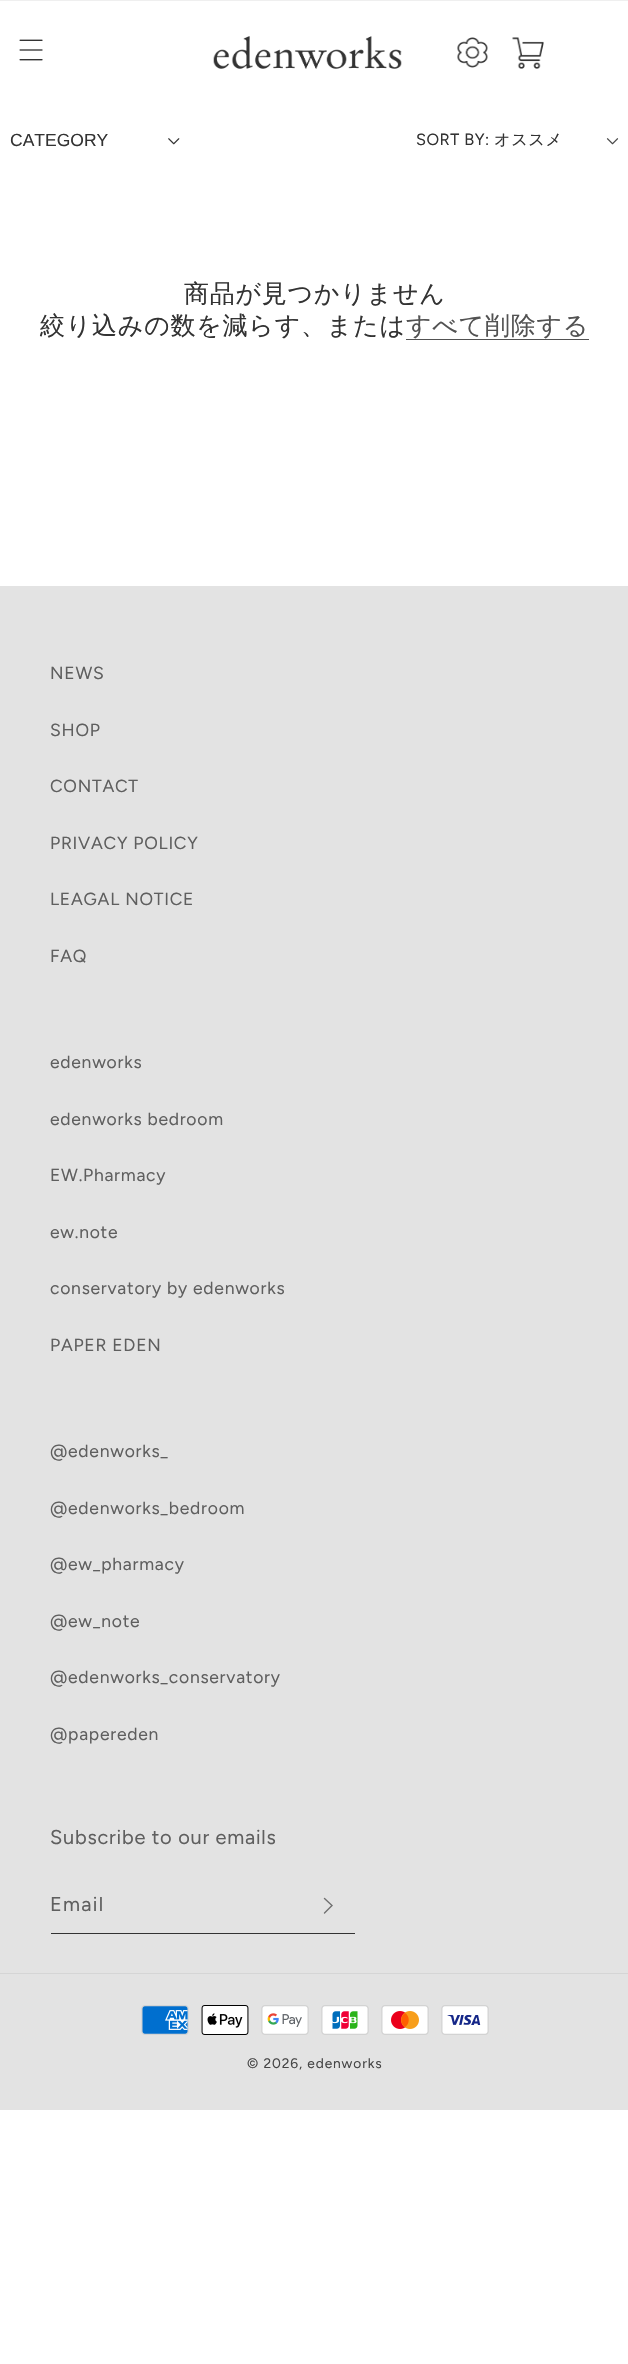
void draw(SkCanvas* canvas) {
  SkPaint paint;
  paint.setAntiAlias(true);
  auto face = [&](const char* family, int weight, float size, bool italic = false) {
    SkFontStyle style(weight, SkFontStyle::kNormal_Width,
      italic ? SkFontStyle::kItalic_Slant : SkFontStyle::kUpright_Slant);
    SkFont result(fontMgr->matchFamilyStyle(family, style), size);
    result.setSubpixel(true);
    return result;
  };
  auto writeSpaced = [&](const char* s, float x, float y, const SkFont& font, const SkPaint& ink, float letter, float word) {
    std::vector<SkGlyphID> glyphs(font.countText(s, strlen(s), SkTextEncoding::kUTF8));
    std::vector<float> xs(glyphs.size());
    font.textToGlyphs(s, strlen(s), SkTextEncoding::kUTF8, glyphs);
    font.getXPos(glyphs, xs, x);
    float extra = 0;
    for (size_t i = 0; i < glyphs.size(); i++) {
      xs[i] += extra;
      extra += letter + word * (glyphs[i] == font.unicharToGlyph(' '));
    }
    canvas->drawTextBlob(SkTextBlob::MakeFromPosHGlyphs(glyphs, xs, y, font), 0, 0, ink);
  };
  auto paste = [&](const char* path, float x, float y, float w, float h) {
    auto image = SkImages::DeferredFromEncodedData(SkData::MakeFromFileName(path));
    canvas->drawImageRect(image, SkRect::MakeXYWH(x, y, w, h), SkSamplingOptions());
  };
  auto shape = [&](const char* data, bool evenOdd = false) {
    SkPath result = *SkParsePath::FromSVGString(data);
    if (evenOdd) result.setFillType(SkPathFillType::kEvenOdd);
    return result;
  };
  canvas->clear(0xffffffff);
  paint.setColor(0xffefefef);
  canvas->drawRect(SkRect::MakeXYWH(0, 0, 628, 1), paint);
  paste("img/1.png", 19, 39, 24, 22);
  paste("img/2.png", 213, 36, 189, 33);
  paste("img/3.png", 457, 37, 31, 31);
  paste("img/4.png", 512, 37, 32, 32);
  paste("img/5.png", 168, 138, 12, 7);
  paste("img/6.png", 606, 138, 13, 7);
  paint.setColor(0xff525252);
  canvas->drawRect(SkRect::MakeXYWH(406, 339, 183, 1), paint);
  paint.setColor(0xffe3e3e3);
  canvas->drawRect(SkRect::MakeXYWH(0, 586, 628, 1524), paint);
  paint.setStroke(true);
  paint.setStrokeWidth(1.4f);
  paint.setStrokeCap(SkPaint::kRound_Cap);
  paint.setColor(0xff707070);
  canvas->drawPath(shape("M324.5 1913L332 1905.5L324.5 1898.5"), paint);
  paint.setStroke(false);
  paint.setColor(0xff333333);
  canvas->drawRect(SkRect::MakeXYWH(51, 1933, 304, 1), paint);
  paint.setColor(0xffd5d5d5);
  canvas->drawRect(SkRect::MakeXYWH(0, 1973, 628, 1), paint);
  paste("img/7.png", 141, 2005, 48, 30);
  paste("img/8.png", 201, 2005, 48, 30);
  paste("img/9.png", 261, 2005, 48, 30);
  paste("img/10.png", 321, 2005, 48, 30);
  paste("img/11.png", 381, 2005, 48, 30);
  paste("img/12.png", 441, 2005, 48, 30);
  auto f0 = face("Liberation Sans", 400, 17.5f);
  paint.setColor(0xff333333);
  canvas->drawString("CATEGORY", 10, 146, f0, paint);
  auto f1 = face("Figtree", 400, 16.25f);
  writeSpaced("SORT BY:", 416, 145, f1, paint, 0.5f, 0);
  auto f2 = face("WenQuanYi Zen Hei", 500, 16.25f);
  writeSpaced("オススメ", 494, 145, f2, paint, 0.5f, 0);
  auto f3 = face("WenQuanYi Zen Hei", 500, 25);
  writeSpaced("商品が見つかりません", 184, 302, f3, paint, 0.75f, 0);
  writeSpaced("絞り込みの数を減らす、または", 40, 334, f3, paint, 0.75f, 0);
  paint.setColor(0xff525252);
  writeSpaced("すべて削除する", 406, 334, f3, paint, 0.75f, 0);
  auto f4 = face("Figtree", 400, 17.5f);
  paint.setColor(0xff5f5f5f);
  {
    const struct { const char* s; float x, y; } items[] = {
      {"NEWS", 50, 679},
      {"SHOP", 50, 736},
      {"CONTACT", 50, 792},
      {"PRIVACY POLICY", 50, 849},
      {"LEAGAL NOTICE", 50, 905},
      {"FAQ", 50, 962},
      {"edenworks", 50, 1068},
      {"edenworks bedroom", 50, 1125},
      {"EW.Pharmacy", 50, 1181},
      {"ew.note", 50, 1238},
      {"conservatory by edenworks", 50, 1294},
      {"PAPER EDEN", 50, 1351},
      {"@edenworks_", 50, 1457},
      {"@edenworks_bedroom", 50, 1514},
      {"@ew_pharmacy", 50, 1570},
      {"@ew_note", 50, 1627},
      {"@edenworks_conservatory", 50, 1683},
      {"@papereden", 50, 1740},
    };
    for (auto [s, x, y] : items) {
      writeSpaced(s, x, y, f4, paint, 0.75f, 0);
    }
  }
  auto f5 = face("Figtree", 400, 20);
  writeSpaced("Subscribe to our emails", 50, 1844, f5, paint, 0.75f, 0);
  writeSpaced("Email", 50, 1911, f5, paint, 1.25f, 0);
  auto f6 = face("Figtree", 400, 13.75f);
  paint.setColor(0xff454545);
  writeSpaced("© 2026, edenworks", 247, 2068, f6, paint, 0.9f, 0);
}
